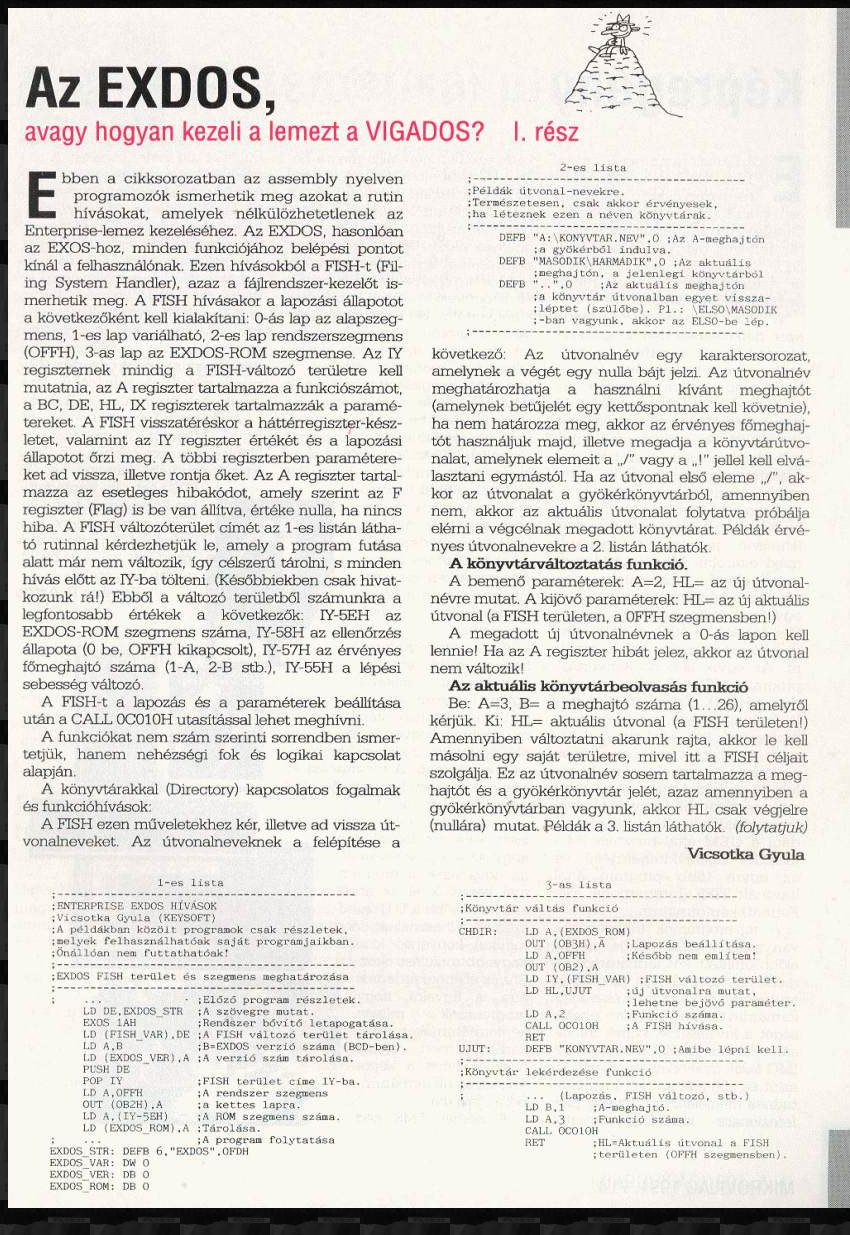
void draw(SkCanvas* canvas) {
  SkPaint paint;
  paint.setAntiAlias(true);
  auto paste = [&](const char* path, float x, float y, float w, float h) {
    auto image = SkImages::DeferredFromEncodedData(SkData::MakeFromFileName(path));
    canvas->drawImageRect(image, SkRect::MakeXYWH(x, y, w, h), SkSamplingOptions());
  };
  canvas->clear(0xffffffff);
  paste("img/1.png", 0, 0, 850, 1235);
  paste("img/2.png", 8, 8, 842, 1200);
}
